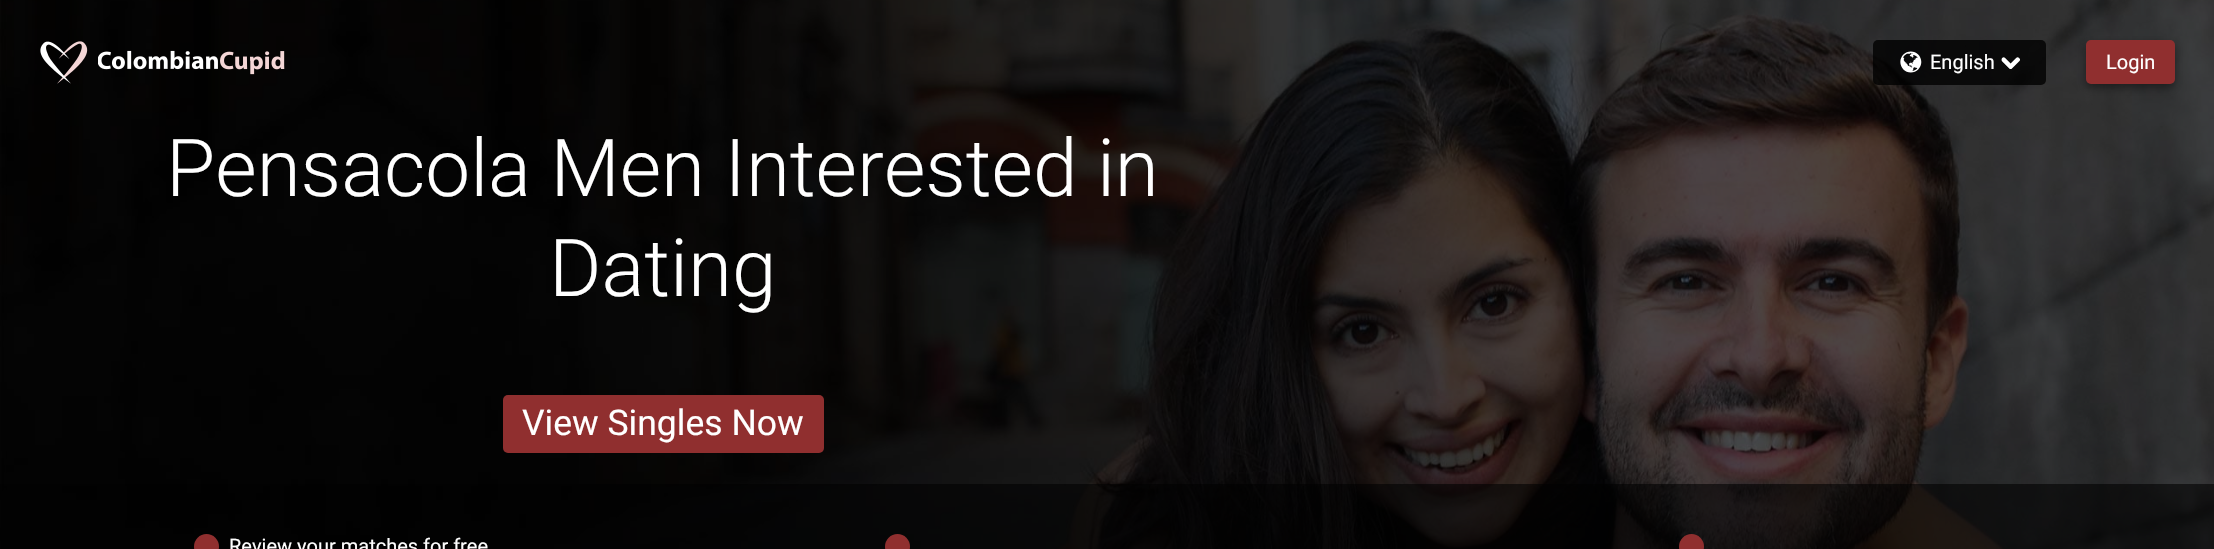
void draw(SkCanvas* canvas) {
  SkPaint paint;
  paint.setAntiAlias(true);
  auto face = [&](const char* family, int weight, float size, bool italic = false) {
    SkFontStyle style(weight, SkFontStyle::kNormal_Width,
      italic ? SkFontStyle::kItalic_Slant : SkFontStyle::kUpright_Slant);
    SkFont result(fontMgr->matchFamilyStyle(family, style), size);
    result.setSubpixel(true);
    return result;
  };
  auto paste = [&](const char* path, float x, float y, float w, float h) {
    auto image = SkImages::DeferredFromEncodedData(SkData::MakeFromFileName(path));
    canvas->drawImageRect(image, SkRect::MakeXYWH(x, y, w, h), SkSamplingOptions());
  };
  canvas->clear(0xffffffff);
  paste("img/5.png", 0, 0, 2214, 549);
  paste("img/1.png", 40, 41, 48, 43);
  paste("img/2.png", 98, 50, 187, 25);
  paint.setColor(0xcc000000);
  canvas->drawRoundRect(SkRect::MakeXYWH(1873, 40, 173, 45), 5, 5, paint);
  paste("img/3.png", 1900, 51, 22, 22);
  paste("img/4.png", 2001, 57, 19, 12);
  paint.setColor(0x66000000);
  paint.setMaskFilter(SkMaskFilter::MakeBlur(kNormal_SkBlurStyle, 4));
  canvas->drawRoundRect(SkRect::MakeXYWH(2086, 44, 89, 44), 5, 5, paint);
  paint.setMaskFilter(nullptr);
  paint.setColor(0xff902f2f);
  canvas->drawRoundRect(SkRect::MakeXYWH(2086, 40, 89, 44), 5, 5, paint);
  canvas->drawRoundRect(SkRect::MakeXYWH(503, 395, 321, 58), 5, 5, paint);
  paint.setColor(0x99000000);
  canvas->drawRect(SkRect::MakeXYWH(0, 484, 2214, 65), paint);
  paint.setColor(0xff902f2f);
  canvas->drawCircle(206.5f, 546.5f, 12.5f, paint);
  canvas->drawCircle(897.5f, 546.5f, 12.5f, paint);
  canvas->drawCircle(1691.5f, 546.5f, 12.5f, paint);
  auto f0 = face("Roboto", 400, 20);
  paint.setColor(0xffffffff);
  canvas->drawString("English", 1930, 69, f0, paint);
  canvas->drawString("Login", 2106, 69, f0, paint);
  auto f1 = face("Roboto", 300, 80);
  canvas->drawString("Pensacola Men Interested in", 166, 196, f1, paint);
  canvas->drawString("Dating", 549, 296, f1, paint);
  auto f2 = face("Roboto", 400, 35.5f);
  canvas->drawString("View Singles Now", 522, 435, f2, paint);
  canvas->drawString("Review your matches for free", 229, 553, f0, paint);
}
